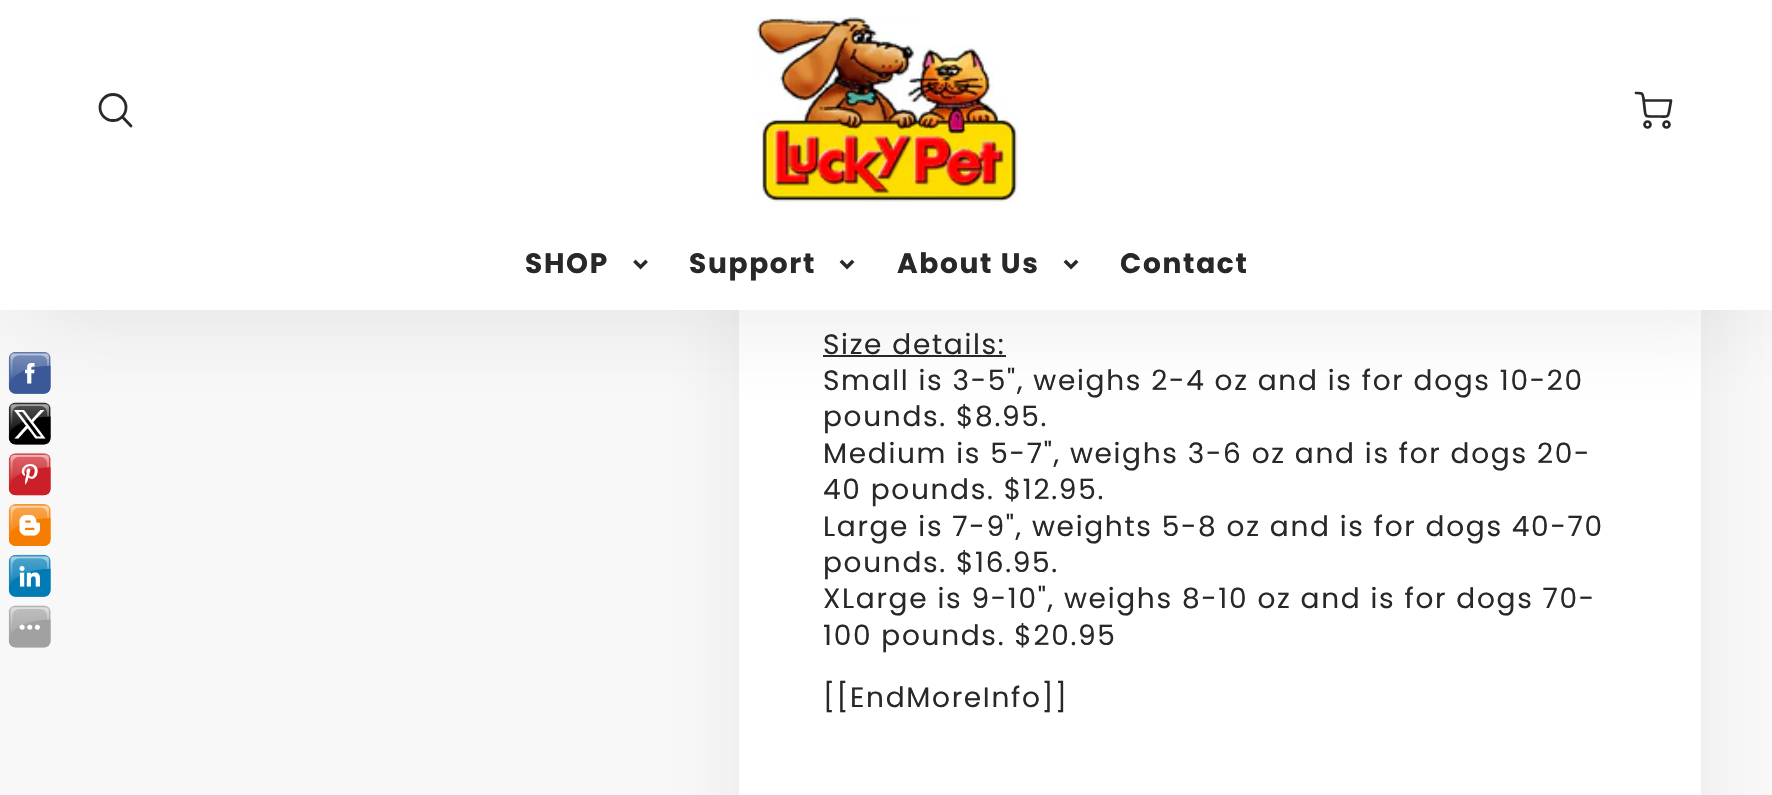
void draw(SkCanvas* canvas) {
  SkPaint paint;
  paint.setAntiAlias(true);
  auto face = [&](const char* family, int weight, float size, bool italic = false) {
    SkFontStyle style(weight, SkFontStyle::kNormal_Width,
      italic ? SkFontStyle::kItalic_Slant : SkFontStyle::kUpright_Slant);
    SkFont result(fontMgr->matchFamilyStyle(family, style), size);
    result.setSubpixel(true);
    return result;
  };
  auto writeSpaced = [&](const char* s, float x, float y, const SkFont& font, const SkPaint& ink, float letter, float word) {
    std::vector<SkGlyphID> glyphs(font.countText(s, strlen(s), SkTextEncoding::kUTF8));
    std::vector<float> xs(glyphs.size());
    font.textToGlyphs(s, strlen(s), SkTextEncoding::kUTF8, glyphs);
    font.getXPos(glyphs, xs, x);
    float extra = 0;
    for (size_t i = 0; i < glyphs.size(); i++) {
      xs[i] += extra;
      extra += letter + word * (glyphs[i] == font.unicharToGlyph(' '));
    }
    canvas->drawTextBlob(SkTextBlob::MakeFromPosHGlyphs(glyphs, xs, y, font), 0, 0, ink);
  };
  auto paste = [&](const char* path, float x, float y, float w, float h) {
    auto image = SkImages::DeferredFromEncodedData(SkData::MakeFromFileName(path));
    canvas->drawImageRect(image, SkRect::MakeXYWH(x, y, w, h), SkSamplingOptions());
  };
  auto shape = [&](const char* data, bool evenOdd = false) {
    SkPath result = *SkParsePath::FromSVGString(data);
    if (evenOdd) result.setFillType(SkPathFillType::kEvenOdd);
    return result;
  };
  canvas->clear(0xfff8f8f8);
  paint.setColor(0x1a282828);
  paint.setMaskFilter(SkMaskFilter::MakeBlur(kNormal_SkBlurStyle, 44));
  canvas->drawRect(SkRect::MakeXYWH(754, -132, 928, 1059), paint);
  paint.setMaskFilter(nullptr);
  paint.setColor(0xffffffff);
  canvas->drawRect(SkRect::MakeXYWH(739, 310, 962, 485), paint);
  paint.setColor(0xff282828);
  canvas->drawRect(SkRect::MakeXYWH(823, 355, 183, 2), paint);
  paint.setColor(0x1a282828);
  paint.setMaskFilter(SkMaskFilter::MakeBlur(kNormal_SkBlurStyle, 44));
  canvas->drawRect(SkRect::MakeXYWH(16, 42, 1738, 275), paint);
  paint.setMaskFilter(nullptr);
  paint.setColor(0xffffffff);
  canvas->drawRect(SkRect::MakeXYWH(0, 0, 1772, 310), paint);
  paint.setStroke(true);
  paint.setStrokeWidth(2.8f);
  paint.setColor(0xff292929);
  canvas->drawCircle(113, 107.5f, 13, paint);
  paint.setStrokeCap(SkPaint::kRound_Cap);
  paint.setStrokeJoin(SkPaint::kRound_Join);
  canvas->drawPath(shape("M131 126L122.5 117"), paint);
  paste("img/1.png", 756, 17, 263, 186);
  paint.setStrokeWidth(2.7f);
  canvas->drawPath(shape("M1643.5 100.5H1671L1669 112C1668 118 1666 116.5 1660 116.5H1651.5C1644 116.5 1645.5 115 1644.5 107.5L1643.5 98.5C1642.5 92.5 1642 93 1636 93"), paint);
  paint.setStrokeCap(SkPaint::kButt_Cap);
  paint.setStrokeJoin(SkPaint::kMiter_Join);
  canvas->drawCircle(1647.5f, 124.5f, 3, paint);
  canvas->drawCircle(1666.5f, 124.5f, 3, paint);
  paste("img/2.png", 633, 259, 15, 11);
  paste("img/3.png", 839, 259, 16, 11);
  paste("img/3.png", 1063, 259, 16, 11);
  paste("img/4.png", 8, 352, 43, 296);
  auto f0 = face("Poppins", 700, 28);
  paint.setStroke(false);
  paint.setColor(0xff282828);
  {
    const struct { const char* s; float x, y; } items[] = {
      {"SHOP", 525, 273},
      {"Support", 689, 273},
      {"About Us", 897, 273},
      {"Contact", 1120, 273},
    };
    for (auto [s, x, y] : items) {
      writeSpaced(s, x, y, f0, paint, 1.68f, 0);
    }
  }
  auto f1 = face("Poppins", 400, 28);
  {
    const struct { const char* s; float x, y; } items[] = {
      {"Size details:", 823, 354},
      {"Small is 3-5\", weighs 2-4 oz and is for dogs 10-20", 823, 390},
      {"pounds. $8.95.", 823, 426},
      {"Medium is 5-7\", weighs 3-6 oz and is for dogs 20-", 823, 463},
      {"40 pounds. $12.95.", 823, 499},
      {"Large is 7-9\", weights 5-8 oz and is for dogs 40-70", 823, 536},
      {"pounds. $16.95.", 823, 572},
      {"XLarge is 9-10\", weighs 8-10 oz and is for dogs 70-", 823, 608},
      {"100 pounds. $20.95", 823, 645},
      {"[[EndMoreInfo]]", 823, 707},
    };
    for (auto [s, x, y] : items) {
      writeSpaced(s, x, y, f1, paint, 1.68f, 0);
    }
  }
}
